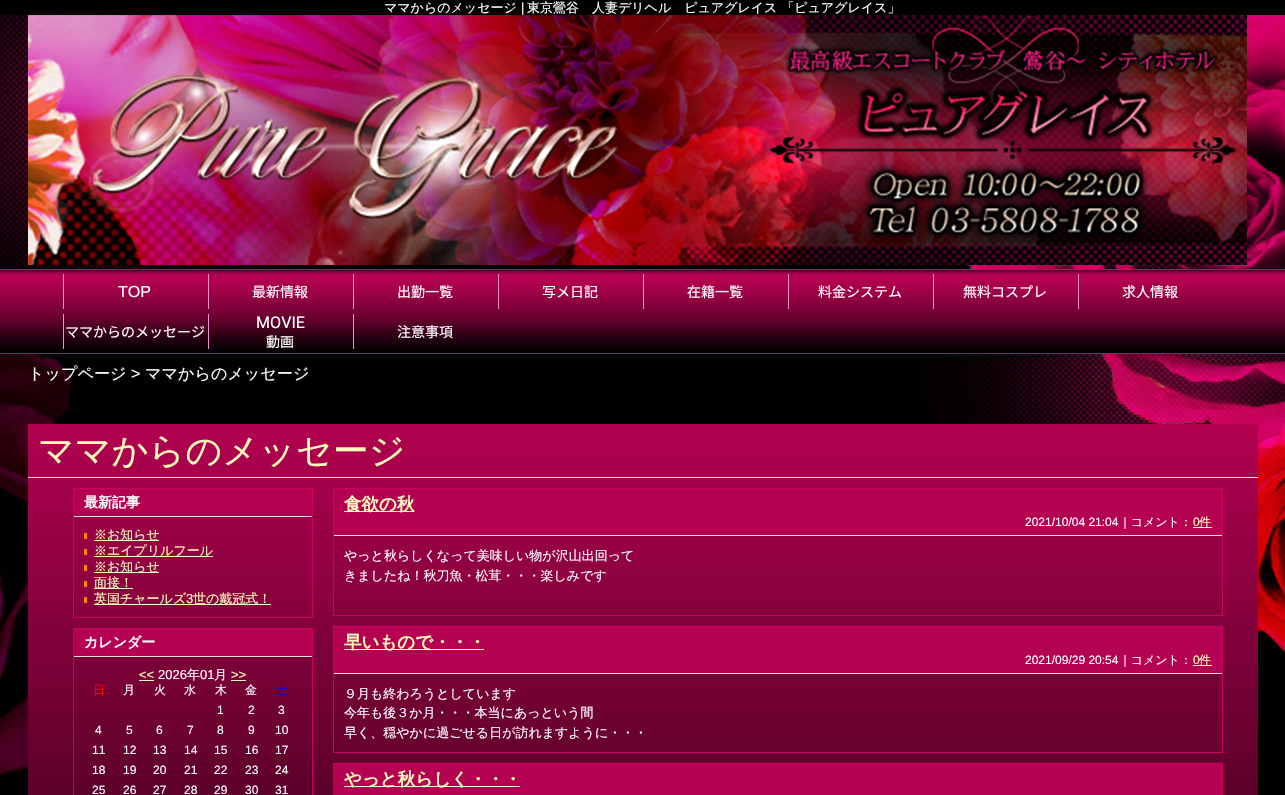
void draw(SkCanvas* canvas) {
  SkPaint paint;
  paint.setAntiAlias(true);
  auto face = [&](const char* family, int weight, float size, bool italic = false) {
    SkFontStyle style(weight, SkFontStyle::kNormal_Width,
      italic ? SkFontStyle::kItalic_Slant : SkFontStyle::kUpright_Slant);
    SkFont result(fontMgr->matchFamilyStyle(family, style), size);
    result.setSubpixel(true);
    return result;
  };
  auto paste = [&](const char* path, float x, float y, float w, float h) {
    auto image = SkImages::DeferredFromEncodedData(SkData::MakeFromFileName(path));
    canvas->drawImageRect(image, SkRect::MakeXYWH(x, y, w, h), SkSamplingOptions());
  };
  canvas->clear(0xffffffff);
  paste("img/1.png", 0, 15, 1285, 780);
  paint.setColor(0xff000000);
  canvas->drawRect(SkRect::MakeXYWH(0, 0, 1285, 15), paint);
  paste("img/2.png", 28, 15, 1219, 250);
  paste("img/3.png", 0, 269, 1285, 85);
  {
    const struct { float x, y, w, h; SkColor color; } items[] = {
      {63, 274, 1, 35, 0xfff28fd0},
      {208, 274, 1, 35, 0xfff28fd0},
      {353, 274, 1, 35, 0xfff28fd0},
      {498, 274, 1, 35, 0xfff28fd0},
      {643, 274, 1, 35, 0xfff28fd0},
      {788, 274, 1, 35, 0xfff28fd0},
      {933, 274, 1, 35, 0xfff28fd0},
      {1078, 274, 1, 35, 0xfff28fd0},
      {63, 314, 1, 35, 0xfff28fd0},
      {208, 314, 1, 35, 0xfff28fd0},
      {353, 314, 1, 35, 0xfff28fd0},
    };
    for (auto [x, y, w, h, color] : items) {
      paint.setColor(color);
      canvas->drawRect(SkRect::MakeXYWH(x, y, w, h), paint);
    }
  }
  {
    const SkColor colors[] = {0xffb20150, 0xff000000};
    const float stops[] = {0, 1};
    const SkPoint ends[] = {{643, 424}, {643, 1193}};
    paint.setShader(SkGradientShader::MakeLinear(ends, colors, stops, 2, SkTileMode::kClamp));
    paint.setAlpha(255);
  }
  canvas->drawRect(SkRect::MakeXYWH(28, 424, 1230, 371), paint);
  paint.setShader(nullptr);
  paint.setColor(0xffe8e9d1);
  canvas->drawRect(SkRect::MakeXYWH(28, 477, 1230, 1), paint);
  paint.setStroke(true);
  paint.setStrokeWidth(1);
  paint.setColor(0xffcb0062);
  canvas->drawRect(SkRect::MakeXYWH(73.5f, 488.5f, 239, 129), paint);
  paint.setStroke(false);
  {
    const struct { float x, y, w, h; SkColor color; } items[] = {
      {74, 489, 238, 27, 0xffb40151},
      {74, 516, 238, 1, 0xffe8e9d1},
      {84, 533, 3, 6, 0xfffa8700},
      {94, 540, 65, 1, 0xfffffabc},
      {84, 549, 3, 6, 0xfffa8700},
      {94, 556, 119, 1, 0xfffffabc},
      {84, 565, 3, 6, 0xfffa8700},
      {94, 572, 65, 1, 0xfffffabc},
      {84, 581, 3, 6, 0xfffa8700},
      {94, 588, 39, 1, 0xfffffabc},
      {84, 597, 3, 6, 0xfffa8700},
      {94, 604, 177, 1, 0xfffffabc},
    };
    for (auto [x, y, w, h, color] : items) {
      paint.setColor(color);
      canvas->drawRect(SkRect::MakeXYWH(x, y, w, h), paint);
    }
  }
  paint.setStroke(true);
  paint.setColor(0xffcb0062);
  canvas->drawRect(SkRect::MakeXYWH(73.5f, 628.5f, 239, 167), paint);
  paint.setStroke(false);
  {
    const struct { float x, y, w, h; SkColor color; } items[] = {
      {74, 629, 238, 27, 0xffb40151},
      {74, 656, 238, 1, 0xffe8e9d1},
      {139, 680, 15, 1, 0xfffffabc},
      {231, 680, 15, 1, 0xfffffabc},
    };
    for (auto [x, y, w, h, color] : items) {
      paint.setColor(color);
      canvas->drawRect(SkRect::MakeXYWH(x, y, w, h), paint);
    }
  }
  paint.setStroke(true);
  paint.setColor(0xffcb0062);
  canvas->drawRect(SkRect::MakeXYWH(333.5f, 488.5f, 889, 127), paint);
  paint.setStroke(false);
  {
    const struct { float x, y, w, h; SkColor color; } items[] = {
      {334, 489, 888, 46, 0xffb40151},
      {334, 535, 888, 1, 0xffe8e9d1},
      {344, 511, 70, 1, 0xfffffabc},
      {1193, 527, 19, 1, 0xfffffabc},
    };
    for (auto [x, y, w, h, color] : items) {
      paint.setColor(color);
      canvas->drawRect(SkRect::MakeXYWH(x, y, w, h), paint);
    }
  }
  paint.setStroke(true);
  paint.setColor(0xffcb0062);
  canvas->drawRect(SkRect::MakeXYWH(333.5f, 626.5f, 889, 126), paint);
  paint.setStroke(false);
  {
    const struct { float x, y, w, h; SkColor color; } items[] = {
      {334, 627, 888, 46, 0xffb40151},
      {334, 673, 888, 1, 0xffe8e9d1},
      {344, 649, 140, 1, 0xfffffabc},
      {1193, 665, 19, 1, 0xfffffabc},
    };
    for (auto [x, y, w, h, color] : items) {
      paint.setColor(color);
      canvas->drawRect(SkRect::MakeXYWH(x, y, w, h), paint);
    }
  }
  paint.setStroke(true);
  paint.setColor(0xffcb0062);
  canvas->drawRect(SkRect::MakeXYWH(333.5f, 763.5f, 889, 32), paint);
  paint.setStroke(false);
  paint.setColor(0xffb40151);
  canvas->drawRect(SkRect::MakeXYWH(334, 764, 888, 31), paint);
  paint.setColor(0xfffffabc);
  canvas->drawRect(SkRect::MakeXYWH(344, 786, 176, 1), paint);
  auto f0 = face("WenQuanYi Zen Hei", 500, 13);
  paint.setColor(0xffffffff);
  canvas->drawString("ママからのメッセージ", 384, 12, f0, paint);
  auto f1 = face("Liberation Sans", 400, 13);
  canvas->drawString("|", 521, 12, f1, paint);
  canvas->drawString("東京鶯谷　人妻デリヘル　ピュアグレイス 「ピュアグレイス」", 527, 12, f0, paint);
  auto f2 = face("Liberation Sans", 400, 16.1f);
  canvas->drawString("TOP", 118, 297, f2, paint);
  auto f3 = face("Noto Sans JP", 100, 14);
  {
    const struct { const char* s; float x, y; } items[] = {
      {"最新情報", 252, 297},
      {"出勤一覧", 397, 297},
      {"写メ日記", 542, 297},
      {"在籍一覧", 687, 297},
      {"料金システム", 818, 297},
      {"無料コスプレ", 963, 297},
      {"求人情報", 1122, 297},
      {"ママからのメッセージ", 65, 337},
    };
    for (auto [s, x, y] : items) {
      canvas->drawString(s, x, y, f3, paint);
    }
  }
  auto f4 = face("Roboto", 400, 16.1f);
  canvas->drawString("MOVIE", 256, 328, f4, paint);
  canvas->drawString("動画", 266, 347, f3, paint);
  canvas->drawString("注意事項", 397, 337, f3, paint);
  auto f5 = face("WenQuanYi Zen Hei", 500, 16.1f);
  canvas->drawString("トップページ", 28, 379, f5, paint);
  canvas->drawString(">", 131, 379, f2, paint);
  canvas->drawString("ママからのメッセージ", 145, 379, f5, paint);
  auto f6 = face("WenQuanYi Zen Hei", 500, 36);
  paint.setColor(0xfffffabc);
  canvas->drawString("ママからのメッセージ", 38, 463, f6, paint);
  auto f7 = face("WenQuanYi Zen Hei", 700, 14);
  paint.setColor(0xffffffff);
  canvas->drawString("最新記事", 84, 507, f7, paint);
  paint.setColor(0xfffffabc);
  {
    const struct { const char* s; float x, y; } items[] = {
      {"※お知らせ", 94, 539},
      {"※エイプリルフール", 94, 555},
      {"※お知らせ", 94, 571},
      {"面接！", 94, 587},
      {"英国チャールズ", 94, 603},
    };
    for (auto [s, x, y] : items) {
      canvas->drawString(s, x, y, f0, paint);
    }
  }
  canvas->drawString("3", 186, 603, f1, paint);
  canvas->drawString("世の戴冠式！", 193, 603, f0, paint);
  paint.setColor(0xffffffff);
  canvas->drawString("カレンダー", 84, 647, f7, paint);
  paint.setColor(0xfffffabc);
  canvas->drawString("<<", 139, 679, f1, paint);
  paint.setColor(0xffffffff);
  canvas->drawString("2026", 158, 679, f1, paint);
  canvas->drawString("年", 187, 679, f0, paint);
  canvas->drawString("01", 200, 679, f1, paint);
  canvas->drawString("月", 214, 679, f0, paint);
  paint.setColor(0xfffffabc);
  canvas->drawString(">>", 231, 679, f1, paint);
  auto f8 = face("WenQuanYi Zen Hei", 500, 12);
  paint.setColor(0xffff0000);
  canvas->drawString("日", 93, 694, f8, paint);
  paint.setColor(0xffffffff);
  {
    const struct { const char* s; float x, y; } items[] = {
      {"月", 123, 694},
      {"火", 154, 694},
      {"水", 184, 694},
      {"木", 215, 694},
      {"金", 245, 694},
    };
    for (auto [s, x, y] : items) {
      canvas->drawString(s, x, y, f8, paint);
    }
  }
  paint.setColor(0xff0000ff);
  canvas->drawString("土", 276, 694, f8, paint);
  auto f9 = face("Liberation Sans", 400, 12);
  paint.setColor(0xffffffff);
  {
    const struct { const char* s; float x, y; } items[] = {
      {"1", 217, 714},
      {"2", 248, 714},
      {"3", 278, 714},
      {"4", 95, 734},
      {"5", 126, 734},
      {"6", 156, 734},
      {"7", 187, 734},
      {"8", 217, 734},
      {"9", 248, 734},
      {"10", 275, 734},
      {"11", 92, 754},
      {"12", 123, 754},
      {"13", 153, 754},
      {"14", 184, 754},
      {"15", 214, 754},
      {"16", 245, 754},
      {"17", 275, 754},
      {"18", 92, 774},
      {"19", 123, 774},
      {"20", 153, 774},
      {"21", 184, 774},
      {"22", 214, 774},
      {"23", 245, 774},
      {"24", 275, 774},
      {"25", 92, 794},
      {"26", 123, 794},
      {"27", 153, 794},
      {"28", 184, 794},
      {"29", 214, 794},
      {"30", 245, 794},
      {"31", 275, 794},
    };
    for (auto [s, x, y] : items) {
      canvas->drawString(s, x, y, f9, paint);
    }
  }
  auto f10 = face("WenQuanYi Zen Hei", 700, 17.5f);
  paint.setColor(0xfffffabc);
  canvas->drawString("食欲の秋", 344, 510, f10, paint);
  paint.setColor(0xffffffff);
  canvas->drawString("2021/10/04 21:04", 1025, 526, f9, paint);
  canvas->drawString("｜コメント：", 1119, 526, f8, paint);
  paint.setColor(0xfffffabc);
  canvas->drawString("0", 1193, 526, f9, paint);
  canvas->drawString("件", 1199, 526, f8, paint);
  paint.setColor(0xffffffff);
  canvas->drawString("やっと秋らしくなって美味しい物が沢山出回って", 344, 560, f0, paint);
  canvas->drawString("きましたね！秋刀魚・松茸・・・楽しみです", 344, 580, f0, paint);
  paint.setColor(0xfffffabc);
  canvas->drawString("早いもので・・・", 344, 648, f10, paint);
  paint.setColor(0xffffffff);
  canvas->drawString("2021/09/29 20:54", 1025, 664, f9, paint);
  canvas->drawString("｜コメント：", 1119, 664, f8, paint);
  paint.setColor(0xfffffabc);
  canvas->drawString("0", 1193, 664, f9, paint);
  canvas->drawString("件", 1199, 664, f8, paint);
  paint.setColor(0xffffffff);
  {
    const struct { const char* s; float x, y; } items[] = {
      {"９月も終わろうとしています", 344, 698},
      {"今年も後３か月・・・本当にあっという間", 344, 717},
      {"早く、穏やかに過ごせる日が訪れますように・・・", 344, 737},
    };
    for (auto [s, x, y] : items) {
      canvas->drawString(s, x, y, f0, paint);
    }
  }
  paint.setColor(0xfffffabc);
  canvas->drawString("やっと秋らしく・・・", 344, 785, f10, paint);
}
